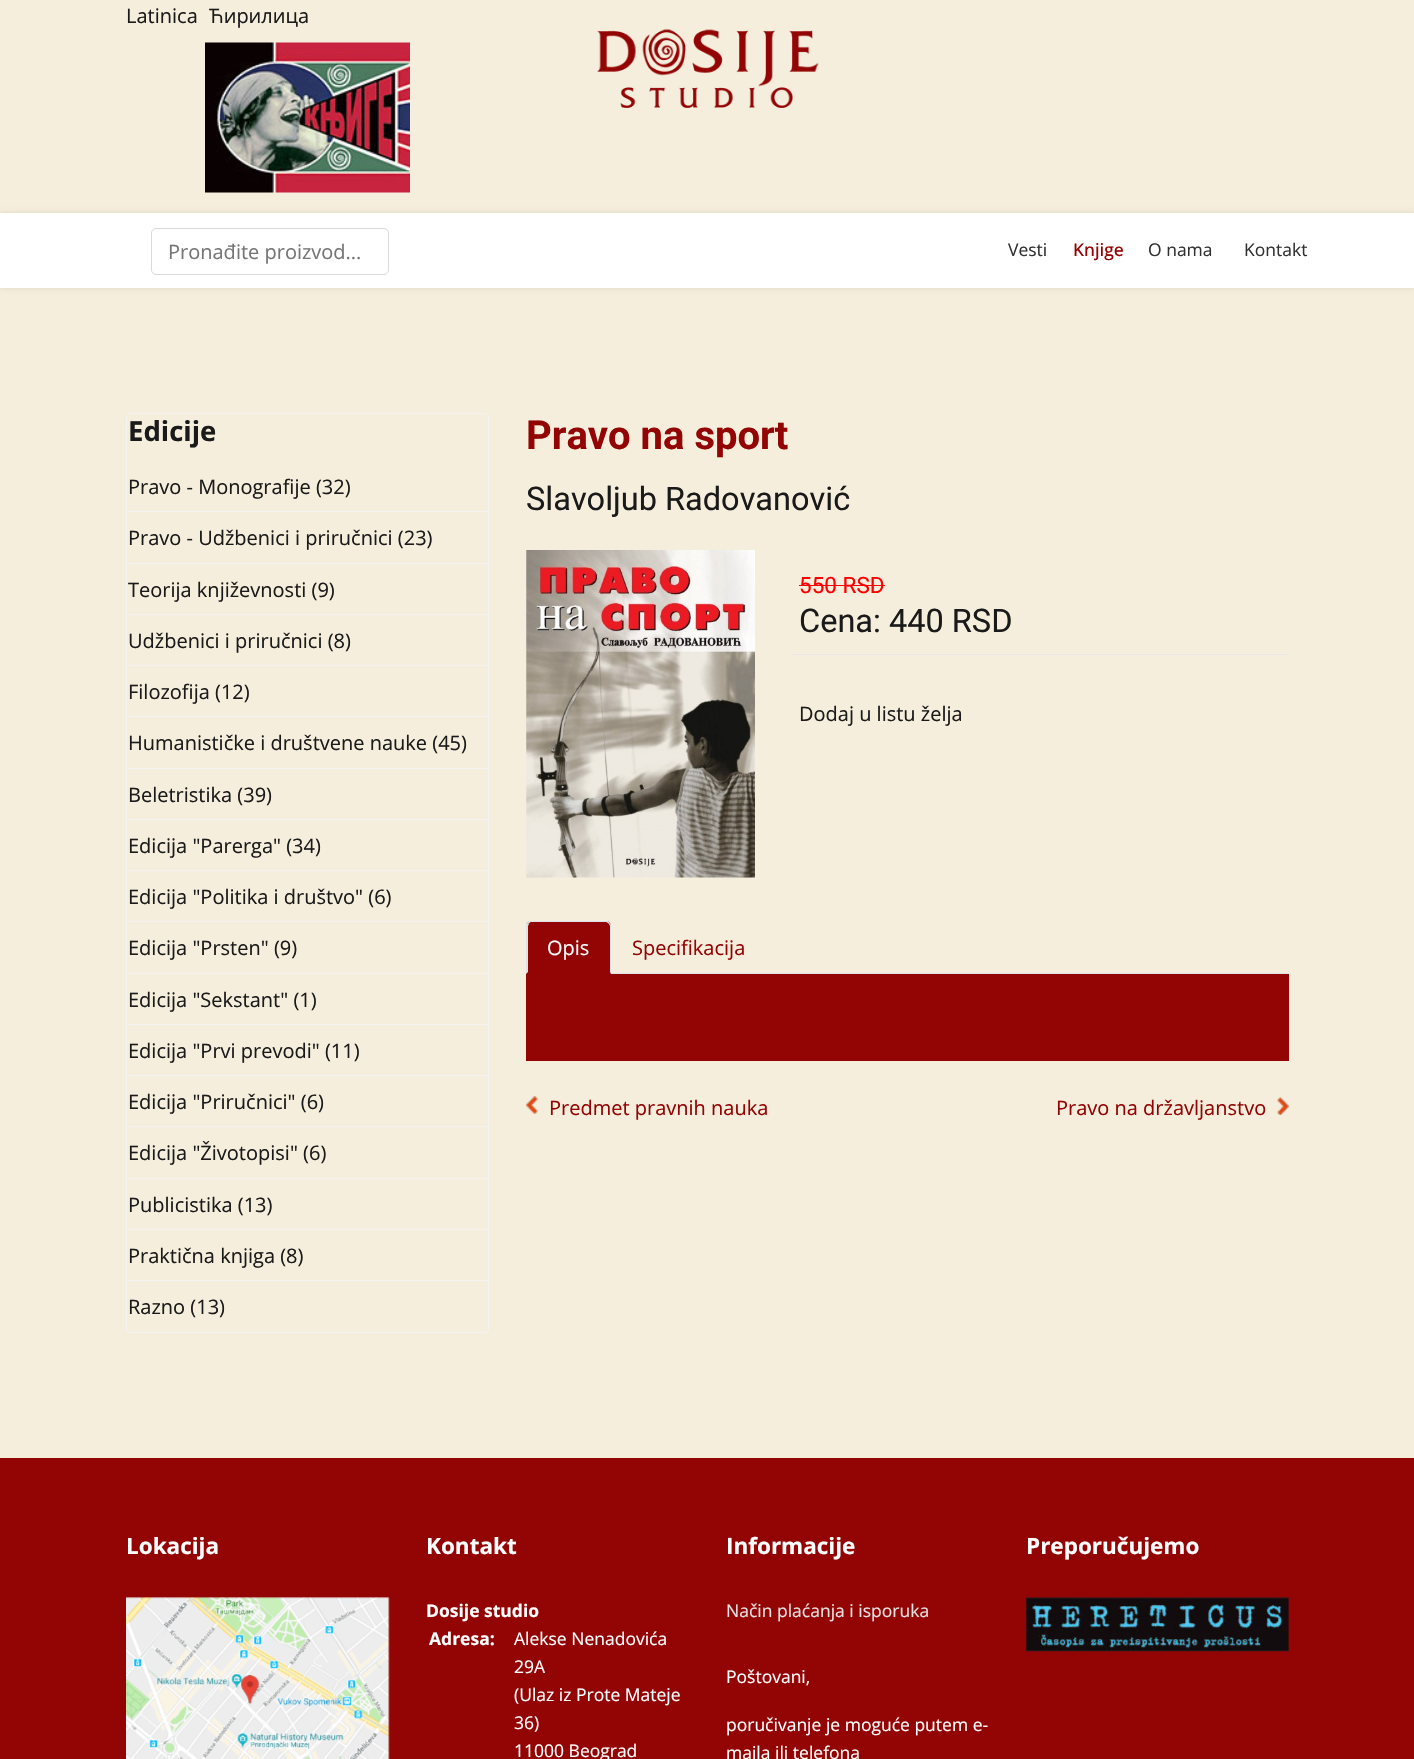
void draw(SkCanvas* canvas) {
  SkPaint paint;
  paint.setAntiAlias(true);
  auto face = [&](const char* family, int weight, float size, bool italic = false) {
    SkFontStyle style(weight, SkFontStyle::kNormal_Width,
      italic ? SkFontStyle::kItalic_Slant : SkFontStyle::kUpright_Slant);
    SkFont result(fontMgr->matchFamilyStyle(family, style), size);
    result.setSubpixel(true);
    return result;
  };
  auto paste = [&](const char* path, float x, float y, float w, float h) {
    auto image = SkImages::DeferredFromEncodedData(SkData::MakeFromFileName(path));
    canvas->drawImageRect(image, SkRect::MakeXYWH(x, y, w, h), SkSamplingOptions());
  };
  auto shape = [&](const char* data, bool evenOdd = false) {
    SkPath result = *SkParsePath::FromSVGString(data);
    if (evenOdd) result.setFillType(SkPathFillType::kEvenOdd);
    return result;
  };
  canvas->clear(0xfff5eedc);
  paste("img/1.png", 205, 42, 205, 151);
  paste("img/2.png", 597, 29, 222, 79);
  paint.setColor(0x1a000000);
  paint.setMaskFilter(SkMaskFilter::MakeBlur(kNormal_SkBlurStyle, 2.5f));
  canvas->drawRect(SkRect::MakeXYWH(0, 213, 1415, 75), paint);
  paint.setMaskFilter(nullptr);
  paint.setColor(0xffffffff);
  canvas->drawRect(SkRect::MakeXYWH(0, 213, 1414, 75), paint);
  paint.setStroke(true);
  paint.setStrokeWidth(1);
  paint.setColor(0xffd9d9d9);
  canvas->drawRoundRect(SkRect::MakeXYWH(151.5f, 228.5f, 237, 46), 4.5f, 4.5f, paint);
  paint.setColor(0xfff3f3f3);
  canvas->drawRoundRect(SkRect::MakeXYWH(126.5f, 413.5f, 362, 919), 3.5f, 3.5f, paint);
  paint.setStroke(false);
  {
    const struct { float x, y, w, h; SkColor color; } items[] = {
      {128, 511, 360, 1, 0xfff3f3f3},
      {128, 563, 360, 1, 0xfff3f3f3},
      {128, 614, 360, 1, 0xfff3f3f3},
      {128, 665, 360, 1, 0xfff3f3f3},
      {128, 716, 360, 1, 0xfff3f3f3},
      {128, 768, 360, 1, 0xfff3f3f3},
      {128, 819, 360, 1, 0xfff3f3f3},
      {128, 870, 360, 1, 0xfff3f3f3},
      {128, 921, 360, 1, 0xfff3f3f3},
      {128, 973, 360, 1, 0xfff3f3f3},
      {128, 1024, 360, 1, 0xfff3f3f3},
      {128, 1075, 360, 1, 0xfff3f3f3},
      {128, 1126, 360, 1, 0xfff3f3f3},
      {128, 1178, 360, 1, 0xfff3f3f3},
      {128, 1229, 360, 1, 0xfff3f3f3},
      {128, 1280, 360, 1, 0xfff3f3f3},
    };
    for (auto [x, y, w, h, color] : items) {
      paint.setColor(color);
      canvas->drawRect(SkRect::MakeXYWH(x, y, w, h), paint);
    }
  }
  paste("img/3.png", 526, 550, 229, 328);
  {
    const struct { float x, y, w, h; SkColor color; } items[] = {
      {793, 654, 496, 1, 0xffe7e7e7},
      {799, 585, 86, 1, 0xffff0000},
      {611, 973, 678, 1, 0xffdee2e6},
    };
    for (auto [x, y, w, h, color] : items) {
      paint.setColor(color);
      canvas->drawRect(SkRect::MakeXYWH(x, y, w, h), paint);
    }
  }
  paint.setColor(0xff930404);
  canvas->drawPath(shape("M531 921H606C609 921 611 923 611 926V974H526V926C526 923 528 921 531 921Z"), paint);
  paint.setColor(0xffdee2e6);
  canvas->drawPath(shape("M531 922C530 922 529 923 529 924L527 922L529 921H608L610 923L609 924C608 923 607 922 606 922Z"), paint);
  canvas->drawPath(shape("M610 923C611 923 611 925 611 926V974L610 972V926L609 924Z"), paint);
  canvas->drawPath(shape("M526 974V924L527 922L529 924L528 926V972Z"), paint);
  paint.setColor(0xff930404);
  canvas->drawRect(SkRect::MakeXYWH(526, 974, 763, 87), paint);
  paste("img/4.png", 526, 1096, 12, 18);
  paste("img/5.png", 1277, 1097, 12, 18);
  canvas->drawRect(SkRect::MakeXYWH(0, 1458, 1414, 301), paint);
  paste("img/6.png", 126, 1597, 264, 162);
  paste("img/7.png", 1026, 1597, 263, 55);
  auto f0 = face("Open Sans", 400, 20);
  paint.setColor(0xff1a1a1a);
  canvas->drawString("Latinica", 126, 23, f0, paint);
  canvas->drawString("Ћирилица", 209, 23, f0, paint);
  paint.setColor(0xff757575);
  canvas->drawString("Pronađite proizvod...", 168, 259, f0, paint);
  auto f1 = face("Open Sans", 400, 17.5f);
  paint.setColor(0xff303030);
  canvas->drawString("Vesti", 1008, 256, f1, paint);
  auto f2 = face("Open Sans", 500, 17.5f);
  paint.setColor(0xff930404);
  canvas->drawString("Knjige", 1073, 256, f2, paint);
  paint.setColor(0xff303030);
  canvas->drawString("O nama", 1148, 256, f1, paint);
  canvas->drawString("Kontakt", 1244, 256, f1, paint);
  auto f3 = face("Open Sans", 700, 27.5f);
  paint.setColor(0xff1a1a1a);
  canvas->drawString("Edicije", 128, 441, f3, paint);
  {
    const struct { const char* s; float x, y; } items[] = {
      {"Pravo - Monografije (32)", 128, 494},
      {"Pravo - Udžbenici i priručnici (23)", 128, 545},
      {"Teorija književnosti (9)", 128, 597},
      {"Udžbenici i priručnici (8)", 128, 648},
      {"Filozofija (12)", 128, 699},
      {"Humanističke i društvene nauke (45)", 128, 750},
      {"Beletristika (39)", 128, 802},
      {"Edicija \"Parerga\" (34)", 128, 853},
      {"Edicija \"Politika i društvo\" (6)", 128, 904},
      {"Edicija \"Prsten\" (9)", 128, 955},
      {"Edicija \"Sekstant\" (1)", 128, 1007},
      {"Edicija \"Prvi prevodi\" (11)", 128, 1058},
      {"Edicija \"Priručnici\" (6)", 128, 1109},
      {"Edicija \"Životopisi\" (6)", 128, 1160},
      {"Publicistika (13)", 128, 1212},
      {"Praktična knjiga (8)", 128, 1263},
      {"Razno (13)", 128, 1314},
    };
    for (auto [s, x, y] : items) {
      canvas->drawString(s, x, y, f0, paint);
    }
  }
  auto f4 = face("Roboto", 700, 40);
  paint.setColor(0xff930404);
  canvas->drawString("Pravo na sport", 526, 449, f4, paint);
  auto f5 = face("Roboto", 400, 32.5f);
  paint.setColor(0xff1a1a1a);
  canvas->drawString("Slavoljub Radovanović", 526, 510, f5, paint);
  auto f6 = face("Roboto", 400, 22.5f);
  paint.setColor(0xffff0000);
  canvas->drawString("550 RSD", 799, 593, f6, paint);
  paint.setColor(0xff1a1a1a);
  canvas->drawString("Cena: 440 RSD", 799, 632, f5, paint);
  canvas->drawString("Dodaj u listu želja", 799, 721, f0, paint);
  paint.setColor(0xffffffff);
  canvas->drawString("Opis", 547, 955, f0, paint);
  paint.setColor(0xff930404);
  {
    const struct { const char* s; float x, y; } items[] = {
      {"Specifikacija", 632, 955},
      {"Predmet pravnih nauka", 549, 1115},
      {"Pravo na državljanstvo", 1056, 1115},
    };
    for (auto [s, x, y] : items) {
      canvas->drawString(s, x, y, f0, paint);
    }
  }
  auto f7 = face("Open Sans", 700, 22.5f);
  paint.setColor(0xffffffff);
  canvas->drawString("Lokacija", 126, 1554, f7, paint);
  canvas->drawString("Kontakt", 426, 1554, f7, paint);
  auto f8 = face("Open Sans", 700, 17.5f);
  canvas->drawString("Dosije studio", 426, 1617, f8, paint);
  canvas->drawString("Adresa:", 429, 1645, f8, paint);
  {
    const struct { const char* s; float x, y; } items[] = {
      {"Alekse Nenadovića", 514, 1645},
      {"29А", 514, 1673},
      {"(Ulaz iz Prote Mateje", 514, 1701},
      {"36)", 514, 1729},
      {"11000 Beograd", 514, 1757},
    };
    for (auto [s, x, y] : items) {
      canvas->drawString(s, x, y, f1, paint);
    }
  }
  canvas->drawString("Informacije", 726, 1554, f7, paint);
  paint.setColor(0xffe3e3e3);
  canvas->drawString("Način plaćanja i isporuka", 726, 1617, f1, paint);
  paint.setColor(0xffffffff);
  {
    const struct { const char* s; float x, y; } items[] = {
      {"Poštovani,", 726, 1683},
      {"poručivanje je moguće putem e-", 726, 1731},
      {"maila ili telefona", 726, 1759},
    };
    for (auto [s, x, y] : items) {
      canvas->drawString(s, x, y, f1, paint);
    }
  }
  canvas->drawString("Preporučujemo", 1026, 1554, f7, paint);
}
